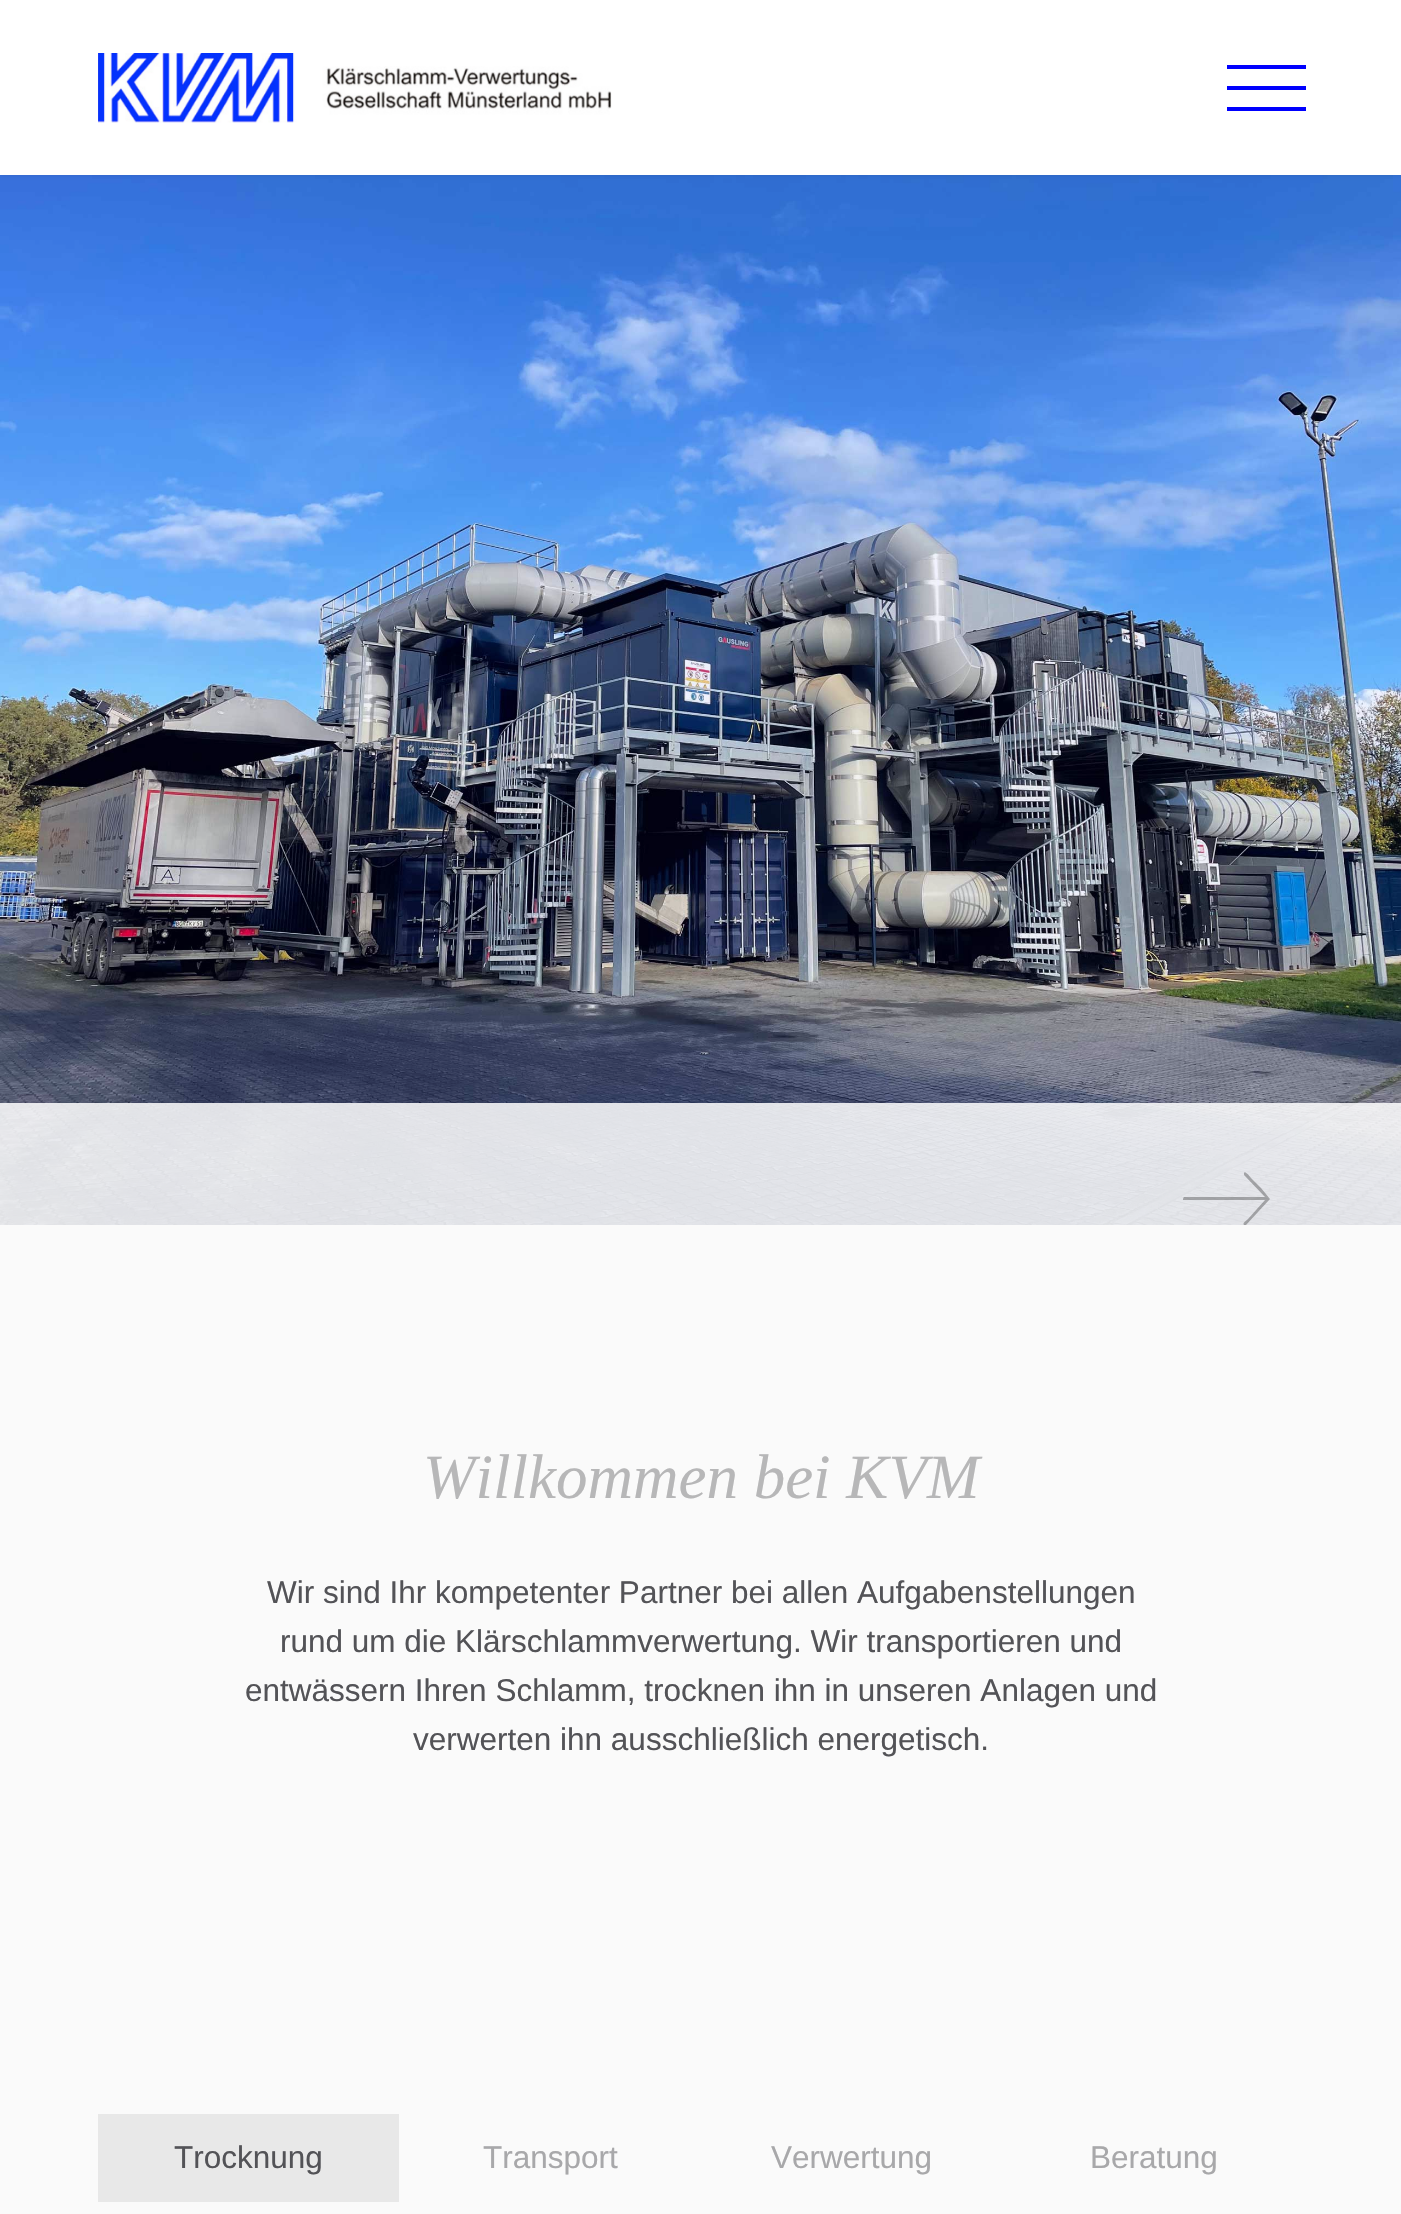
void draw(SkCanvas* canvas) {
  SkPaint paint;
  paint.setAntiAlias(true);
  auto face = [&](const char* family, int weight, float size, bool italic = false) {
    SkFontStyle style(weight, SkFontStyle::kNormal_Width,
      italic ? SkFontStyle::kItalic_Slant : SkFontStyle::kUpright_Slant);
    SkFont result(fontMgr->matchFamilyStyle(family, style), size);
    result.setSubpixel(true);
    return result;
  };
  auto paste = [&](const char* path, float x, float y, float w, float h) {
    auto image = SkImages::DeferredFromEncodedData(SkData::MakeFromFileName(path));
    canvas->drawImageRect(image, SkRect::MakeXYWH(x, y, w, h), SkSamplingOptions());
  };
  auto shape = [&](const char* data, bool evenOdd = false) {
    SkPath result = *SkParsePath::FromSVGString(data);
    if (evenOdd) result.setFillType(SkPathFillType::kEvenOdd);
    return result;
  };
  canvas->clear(0xfffafafa);
  paste("img/2.png", 0, 175, 1401, 1050);
  paint.setColor(0x1a000000);
  paint.setMaskFilter(SkMaskFilter::MakeBlur(kNormal_SkBlurStyle, 2));
  canvas->drawRect(SkRect::MakeXYWH(0, 0, 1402, 175), paint);
  paint.setMaskFilter(nullptr);
  paint.setColor(0xffffffff);
  canvas->drawRect(SkRect::MakeXYWH(0, 0, 1401, 175), paint);
  paste("img/1.png", 98, 53, 514, 70);
  {
    const struct { float x, y, w, h; SkColor color; } items[] = {
      {1227, 86, 79, 4, 0xff0000fe},
      {1227, 65, 79, 4, 0xff0000fe},
      {1227, 107, 79, 4, 0xff0000fe},
      {0, 1103, 1401, 122, 0xd9ffffff},
    };
    for (auto [x, y, w, h, color] : items) {
      paint.setColor(color);
      canvas->drawRect(SkRect::MakeXYWH(x, y, w, h), paint);
    }
  }
  paint.setColor(0x541a1a1a);
  canvas->drawPath(shape("M1261 1188L1251 1178C1251 1178 1245 1170 1244 1173V1175L1265 1197H1184C1183 1198 1183 1199 1183 1200H1184H1265L1248 1219C1246 1221 1242 1223 1244 1225H1246L1270 1199Z", true), paint);
  paint.setColor(0xffe8e8e8);
  canvas->drawRect(SkRect::MakeXYWH(98, 2114, 301, 88), paint);
  auto f0 = face("Liberation Serif", 400, 63, true);
  paint.setColor(0xffb7b7b8);
  canvas->drawString("Willkommen bei KVM", 423, 1498, f0, paint);
  auto f1 = face("Liberation Sans", 400, 31.5f);
  paint.setColor(0xff535357);
  {
    const struct { const char* s; float x, y; } items[] = {
      {"Wir sind Ihr kompetenter Partner bei allen Aufgabenstellungen", 267, 1603},
      {"rund um die Klärschlammverwertung. Wir transportieren und", 280, 1652},
      {"entwässern Ihren Schlamm, trocknen ihn in unseren Anlagen und", 245, 1701},
      {"verwerten ihn ausschließlich energetisch.", 413, 1750},
      {"Trocknung", 174, 2168},
    };
    for (auto [s, x, y] : items) {
      canvas->drawString(s, x, y, f1, paint);
    }
  }
  paint.setColor(0xffa8a8aa);
  {
    const struct { const char* s; float x, y; } items[] = {
      {"Transport", 483, 2168},
      {"Verwertung", 771, 2168},
      {"Beratung", 1090, 2168},
    };
    for (auto [s, x, y] : items) {
      canvas->drawString(s, x, y, f1, paint);
    }
  }
}
